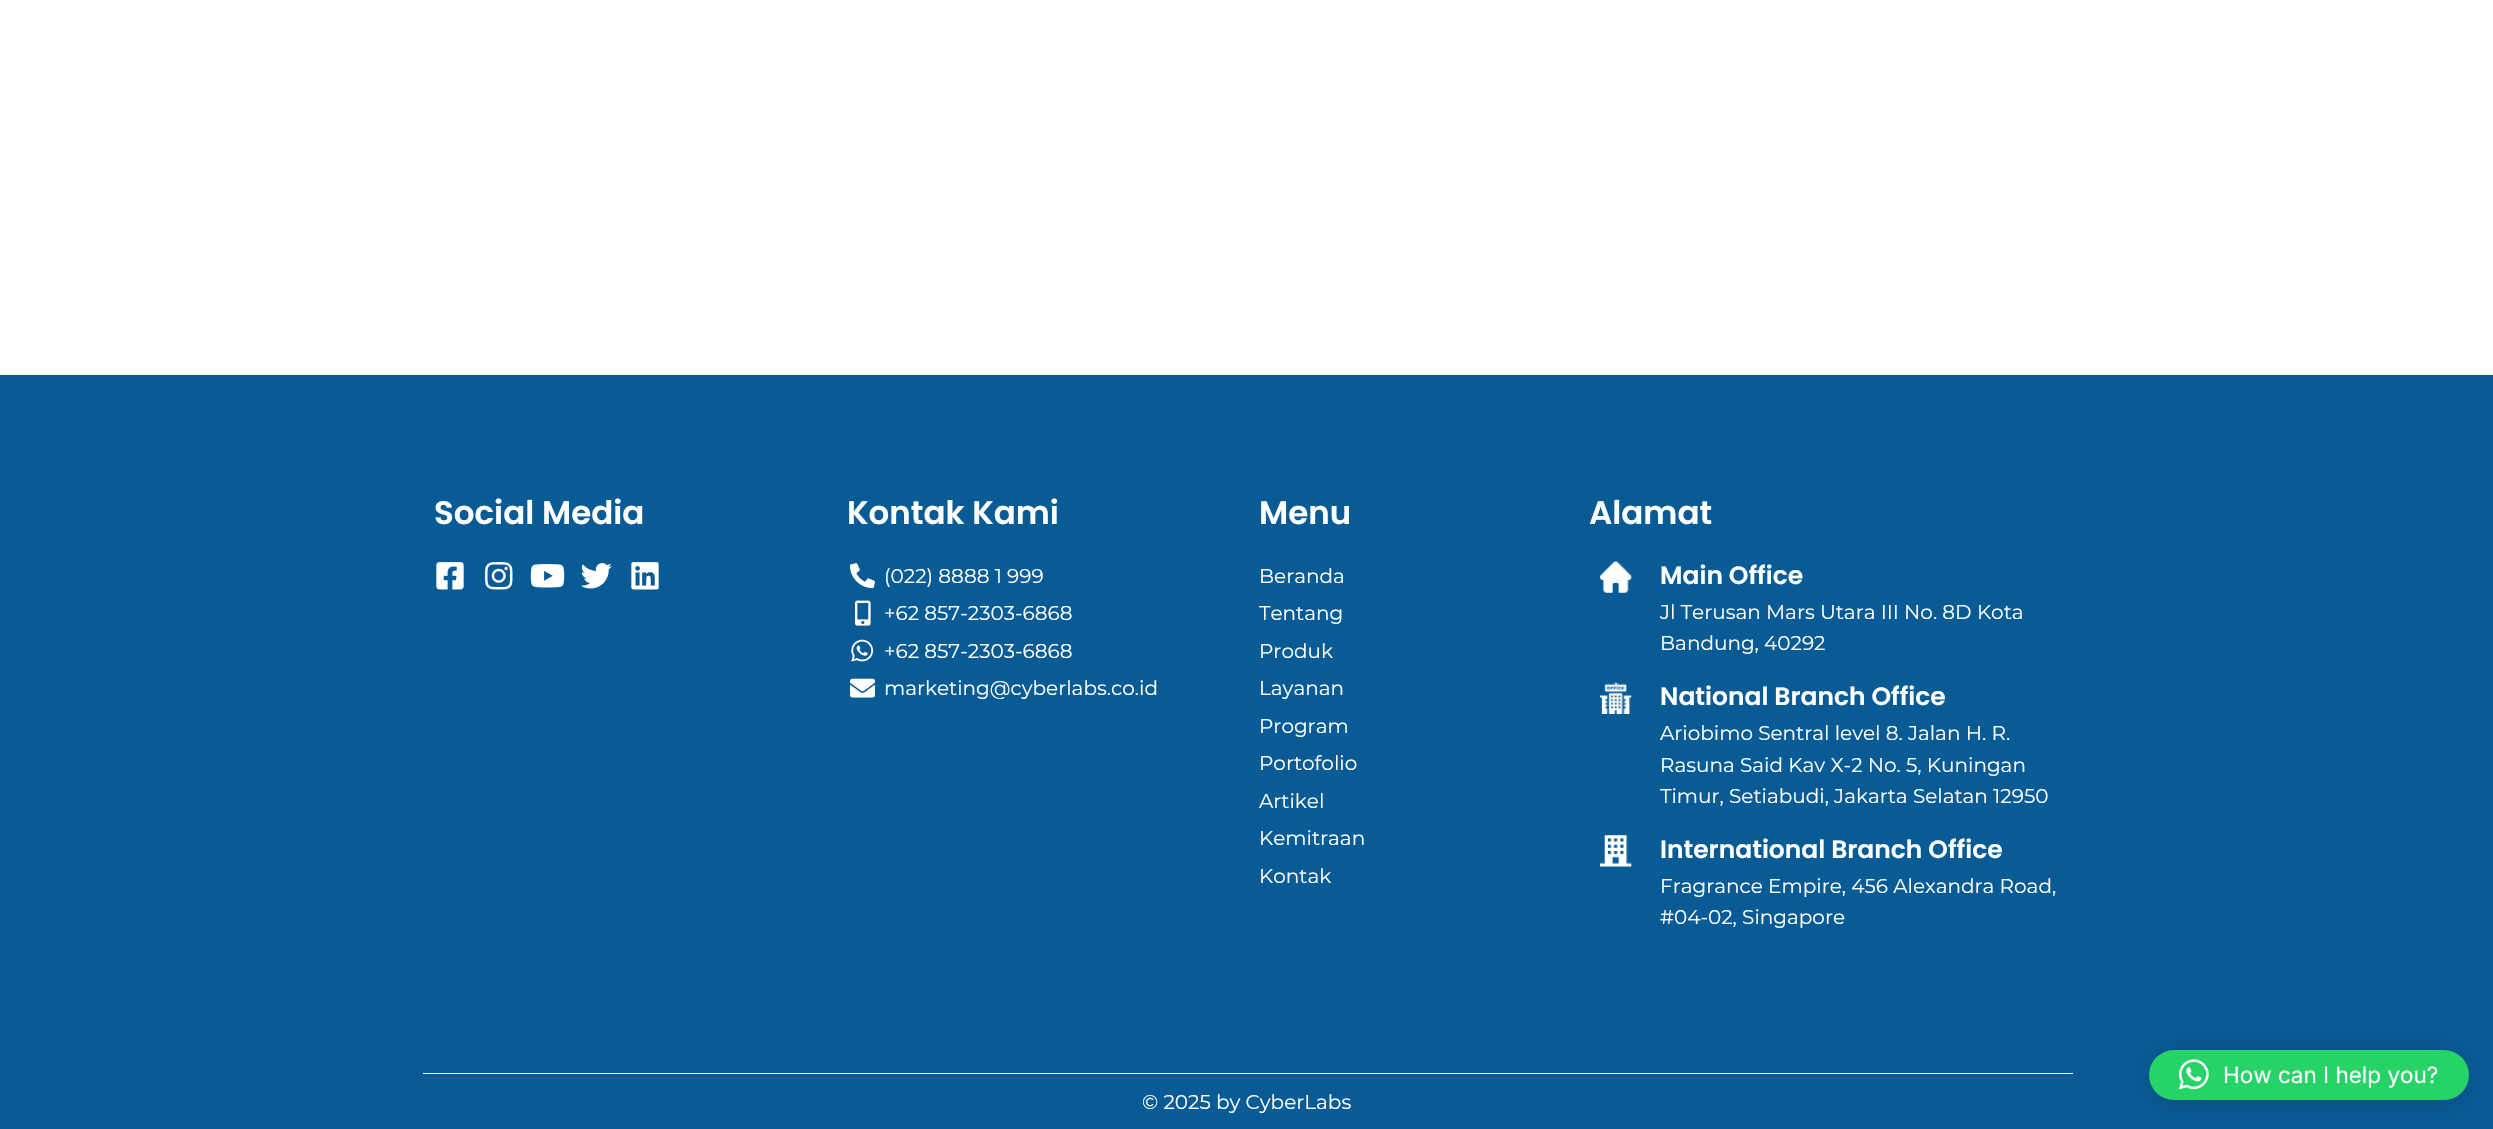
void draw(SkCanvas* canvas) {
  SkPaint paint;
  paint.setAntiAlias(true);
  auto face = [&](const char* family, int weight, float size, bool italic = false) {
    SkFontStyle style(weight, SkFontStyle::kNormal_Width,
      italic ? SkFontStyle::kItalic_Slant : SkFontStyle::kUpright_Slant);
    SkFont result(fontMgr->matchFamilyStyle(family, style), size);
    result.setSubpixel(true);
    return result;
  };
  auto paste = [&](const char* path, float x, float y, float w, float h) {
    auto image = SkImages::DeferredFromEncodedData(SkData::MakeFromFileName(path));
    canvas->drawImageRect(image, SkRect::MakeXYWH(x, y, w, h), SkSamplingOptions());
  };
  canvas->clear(0xffffffff);
  paint.setColor(0xff095b96);
  canvas->drawRect(SkRect::MakeXYWH(0, 375, 2493, 754), paint);
  paste("img/1.png", 436, 562, 28, 28);
  paste("img/2.png", 485, 562, 28, 28);
  paste("img/3.png", 530, 564, 35, 24);
  paste("img/4.png", 580, 563, 32, 26);
  paste("img/5.png", 631, 562, 28, 28);
  paste("img/6.png", 850, 563, 25, 26);
  paste("img/7.png", 855, 600, 16, 26);
  paste("img/8.png", 851, 639, 23, 23);
  paste("img/9.png", 850, 678, 25, 20);
  paste("img/10.png", 1600, 561, 32, 32);
  paste("img/11.png", 1600, 682, 32, 32);
  paste("img/12.png", 1600, 835, 32, 32);
  paint.setColor(0xffffffff);
  canvas->drawRect(SkRect::MakeXYWH(423, 1073, 1650, 1), paint);
  paint.setColor(0x29000000);
  paint.setMaskFilter(SkMaskFilter::MakeBlur(kNormal_SkBlurStyle, 20));
  canvas->drawRoundRect(SkRect::MakeXYWH(2149, 1053, 320, 50), 25, 25, paint);
  paint.setMaskFilter(nullptr);
  paint.setColor(0xff25d366);
  canvas->drawRoundRect(SkRect::MakeXYWH(2149, 1050, 320, 50), 25, 25, paint);
  paste("img/13.png", 2178, 1059, 31, 31);
  auto f0 = face("Poppins", 600, 32.5f);
  paint.setColor(0xffffffff);
  canvas->drawString("Social Media", 434, 524, f0, paint);
  canvas->drawString("Kontak Kami", 847, 524, f0, paint);
  auto f1 = face("Montserrat", 400, 20);
  {
    const struct { const char* s; float x, y; } items[] = {
      {"(022) 8888 1 999", 884, 583},
      {"+62 857-2303-6868", 884, 620},
      {"+62 857-2303-6868", 884, 658},
      {"marketing@cyberlabs.co.id", 884, 695},
    };
    for (auto [s, x, y] : items) {
      canvas->drawString(s, x, y, f1, paint);
    }
  }
  canvas->drawString("Menu", 1259, 524, f0, paint);
  {
    const struct { const char* s; float x, y; } items[] = {
      {"Beranda", 1259, 583},
      {"Tentang", 1259, 620},
      {"Produk", 1259, 658},
      {"Layanan", 1259, 695},
      {"Program", 1259, 733},
      {"Portofolio", 1259, 770},
      {"Artikel", 1259, 808},
      {"Kemitraan", 1259, 845},
      {"Kontak", 1259, 883},
    };
    for (auto [s, x, y] : items) {
      canvas->drawString(s, x, y, f1, paint);
    }
  }
  canvas->drawString("Alamat", 1589, 524, f0, paint);
  auto f2 = face("Poppins", 600, 25);
  canvas->drawString("Main Office", 1660, 584, f2, paint);
  canvas->drawString("Jl Terusan Mars Utara III No. 8D Kota", 1660, 619, f1, paint);
  canvas->drawString("Bandung, 40292", 1660, 650, f1, paint);
  canvas->drawString("National Branch Office", 1660, 705, f2, paint);
  {
    const struct { const char* s; float x, y; } items[] = {
      {"Ariobimo Sentral level 8. Jalan H. R.", 1660, 740},
      {"Rasuna Said Kav X-2 No. 5, Kuningan", 1660, 772},
      {"Timur, Setiabudi, Jakarta Selatan 12950", 1660, 803},
    };
    for (auto [s, x, y] : items) {
      canvas->drawString(s, x, y, f1, paint);
    }
  }
  canvas->drawString("International Branch Office", 1660, 858, f2, paint);
  {
    const struct { const char* s; float x, y; } items[] = {
      {"Fragrance Empire, 456 Alexandra Road,", 1660, 893},
      {"#04-02, Singapore", 1660, 924},
      {"© 2025 by CyberLabs", 1142, 1109},
    };
    for (auto [s, x, y] : items) {
      canvas->drawString(s, x, y, f1, paint);
    }
  }
  auto f3 = face("Inter", 400, 22.5f);
  canvas->drawString("How can I help you?", 2223, 1083, f3, paint);
}
